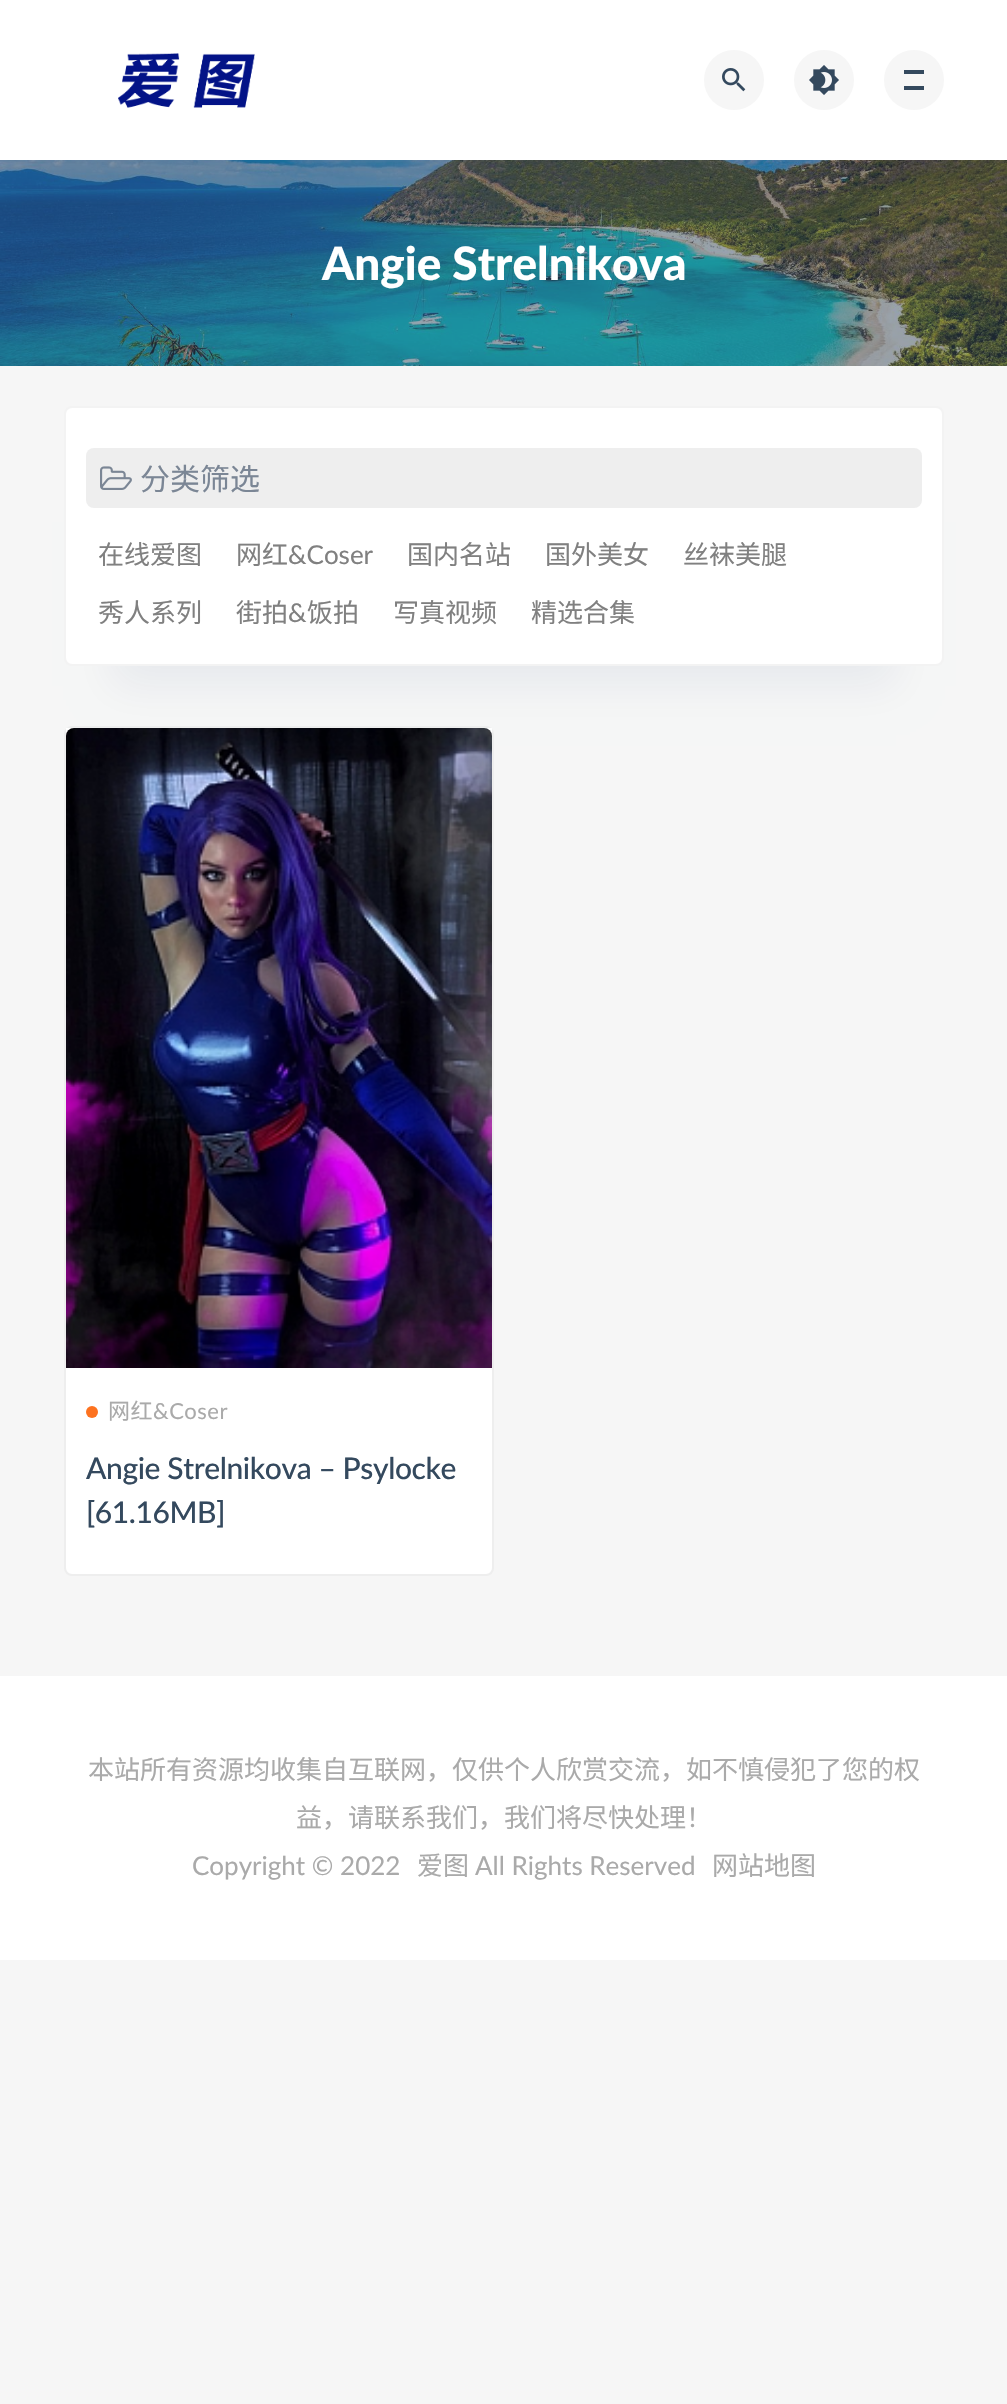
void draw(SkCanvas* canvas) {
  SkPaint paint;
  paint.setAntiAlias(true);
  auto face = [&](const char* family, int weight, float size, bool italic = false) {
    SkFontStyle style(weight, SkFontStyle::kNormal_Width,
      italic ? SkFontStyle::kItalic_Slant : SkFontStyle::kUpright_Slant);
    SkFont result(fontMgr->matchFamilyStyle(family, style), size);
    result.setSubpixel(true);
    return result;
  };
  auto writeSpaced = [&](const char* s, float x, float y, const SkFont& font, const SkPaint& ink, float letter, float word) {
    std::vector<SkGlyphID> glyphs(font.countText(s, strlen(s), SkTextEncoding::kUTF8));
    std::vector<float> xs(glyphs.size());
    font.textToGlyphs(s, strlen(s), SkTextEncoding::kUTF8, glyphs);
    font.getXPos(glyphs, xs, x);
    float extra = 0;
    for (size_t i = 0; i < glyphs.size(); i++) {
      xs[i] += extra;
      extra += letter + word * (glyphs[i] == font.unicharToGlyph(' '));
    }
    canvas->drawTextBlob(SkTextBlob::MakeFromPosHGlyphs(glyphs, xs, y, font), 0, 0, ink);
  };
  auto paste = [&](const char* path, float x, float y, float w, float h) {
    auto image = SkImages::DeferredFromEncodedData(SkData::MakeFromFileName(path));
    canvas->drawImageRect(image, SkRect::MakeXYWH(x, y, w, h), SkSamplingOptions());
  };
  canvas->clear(0xfff6f6f6);
  paste("img/4.png", 0, 160, 1007, 206);
  paint.setColor(0x12000000);
  paint.setMaskFilter(SkMaskFilter::MakeBlur(kNormal_SkBlurStyle, 30));
  canvas->drawRect(SkRect::MakeXYWH(0, 0, 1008, 160), paint);
  paint.setMaskFilter(nullptr);
  paint.setColor(0xffffffff);
  canvas->drawRect(SkRect::MakeXYWH(0, 0, 1007, 160), paint);
  paste("img/1.png", 118, 53, 137, 55);
  paint.setColor(0xfff6f6f6);
  canvas->drawCircle(734, 80, 30, paint);
  paste("img/2.png", 722, 68, 24, 24);
  canvas->drawCircle(824, 80, 30, paint);
  paste("img/3.png", 809, 65, 30, 30);
  canvas->drawCircle(914, 80, 30, paint);
  paint.setColor(0xff34495e);
  canvas->drawRect(SkRect::MakeXYWH(904, 70, 20, 4), paint);
  canvas->drawRect(SkRect::MakeXYWH(904, 86, 20, 4), paint);
  paint.setColor(0xffffffff);
  canvas->drawRoundRect(SkRect::MakeXYWH(65, 727, 428, 848), 7, 7, paint);
  paint.setStroke(true);
  paint.setStrokeWidth(2);
  paint.setColor(0xffeeeeee);
  canvas->drawRoundRect(SkRect::MakeXYWH(65, 727, 428, 848), 7, 7, paint);
  paint.setStroke(false);
  paint.setColor(0xffffffff);
  canvas->drawRect(SkRect::MakeXYWH(66, 728, 426, 5), paint);
  paste("img/6.png", 66, 728, 426, 640);
  paint.setColor(0x0f002464);
  paint.setMaskFilter(SkMaskFilter::MakeBlur(kNormal_SkBlurStyle, 20));
  canvas->drawRect(SkRect::MakeXYWH(112, 522, 784, 164), paint);
  paint.setMaskFilter(nullptr);
  paint.setColor(0xffffffff);
  canvas->drawRoundRect(SkRect::MakeXYWH(65, 407, 878, 258), 7, 7, paint);
  paint.setStroke(true);
  paint.setColor(0xfff3f3f3);
  canvas->drawRoundRect(SkRect::MakeXYWH(65, 407, 878, 258), 7, 7, paint);
  paint.setStroke(false);
  paint.setColor(0xffeeeeee);
  canvas->drawRoundRect(SkRect::MakeXYWH(86, 448, 836, 60), 8, 8, paint);
  paste("img/5.png", 100, 466, 32, 24);
  paint.setColor(0xfffd721f);
  canvas->drawCircle(92, 1412, 6, paint);
  paint.setColor(0xffffffff);
  canvas->drawRect(SkRect::MakeXYWH(0, 1676, 1007, 284), paint);
  auto f0 = face("Lato", 900, 46);
  canvas->drawString("Angie Strelnikova", 322, 280, f0, paint);
  auto f1 = face("Noto Sans CJK SC", 400, 30);
  paint.setColor(0xff7b8695);
  canvas->drawString("分类筛选", 140, 490, f1, paint);
  auto f2 = face("Noto Sans CJK SC", 400, 26);
  paint.setColor(0xff808080);
  canvas->drawString("在线爱图", 98, 564, f2, paint);
  canvas->drawString("网红", 236, 564, f2, paint);
  auto f3 = face("Lato", 400, 26);
  canvas->drawString("&Coser", 288, 564, f3, paint);
  {
    const struct { const char* s; float x, y; } items[] = {
      {"国内名站", 407, 564},
      {"国外美女", 545, 564},
      {"丝袜美腿", 683, 564},
      {"秀人系列", 98, 622},
      {"街拍", 236, 622},
    };
    for (auto [s, x, y] : items) {
      canvas->drawString(s, x, y, f2, paint);
    }
  }
  canvas->drawString("&", 288, 622, f3, paint);
  {
    const struct { const char* s; float x, y; } items[] = {
      {"饭拍", 307, 622},
      {"写真视频", 393, 622},
      {"精选合集", 531, 622},
    };
    for (auto [s, x, y] : items) {
      canvas->drawString(s, x, y, f2, paint);
    }
  }
  auto f4 = face("Noto Sans CJK SC", 400, 22);
  paint.setColor(0xffaaaaaa);
  writeSpaced("网红", 108, 1419, f4, paint, 0.5f, 0);
  auto f5 = face("Lato", 400, 22);
  writeSpaced("&Coser", 153, 1419, f5, paint, 0.5f, 0);
  auto f6 = face("Lato", 500, 30);
  paint.setColor(0xff34495e);
  writeSpaced("Angie Strelnikova – Psylocke", 86, 1479, f6, paint, -0.4f, 0);
  writeSpaced("[61.16MB]", 86, 1523, f6, paint, -0.4f, 0);
  paint.setColor(0xffaaaaaa);
  canvas->drawString("本站所有资源均收集自互联网，仅供个人欣赏交流，如不慎侵犯了您的权", 88, 1779, f2, paint);
  canvas->drawString("益，请联系我们，我们将尽快处理！", 296, 1827, f2, paint);
  canvas->drawString("Copyright © 2022", 192, 1875, f3, paint);
  canvas->drawString("爱图", 417, 1875, f2, paint);
  canvas->drawString("All Rights Reserved", 475, 1875, f3, paint);
  canvas->drawString("网站地图", 712, 1875, f2, paint);
}
